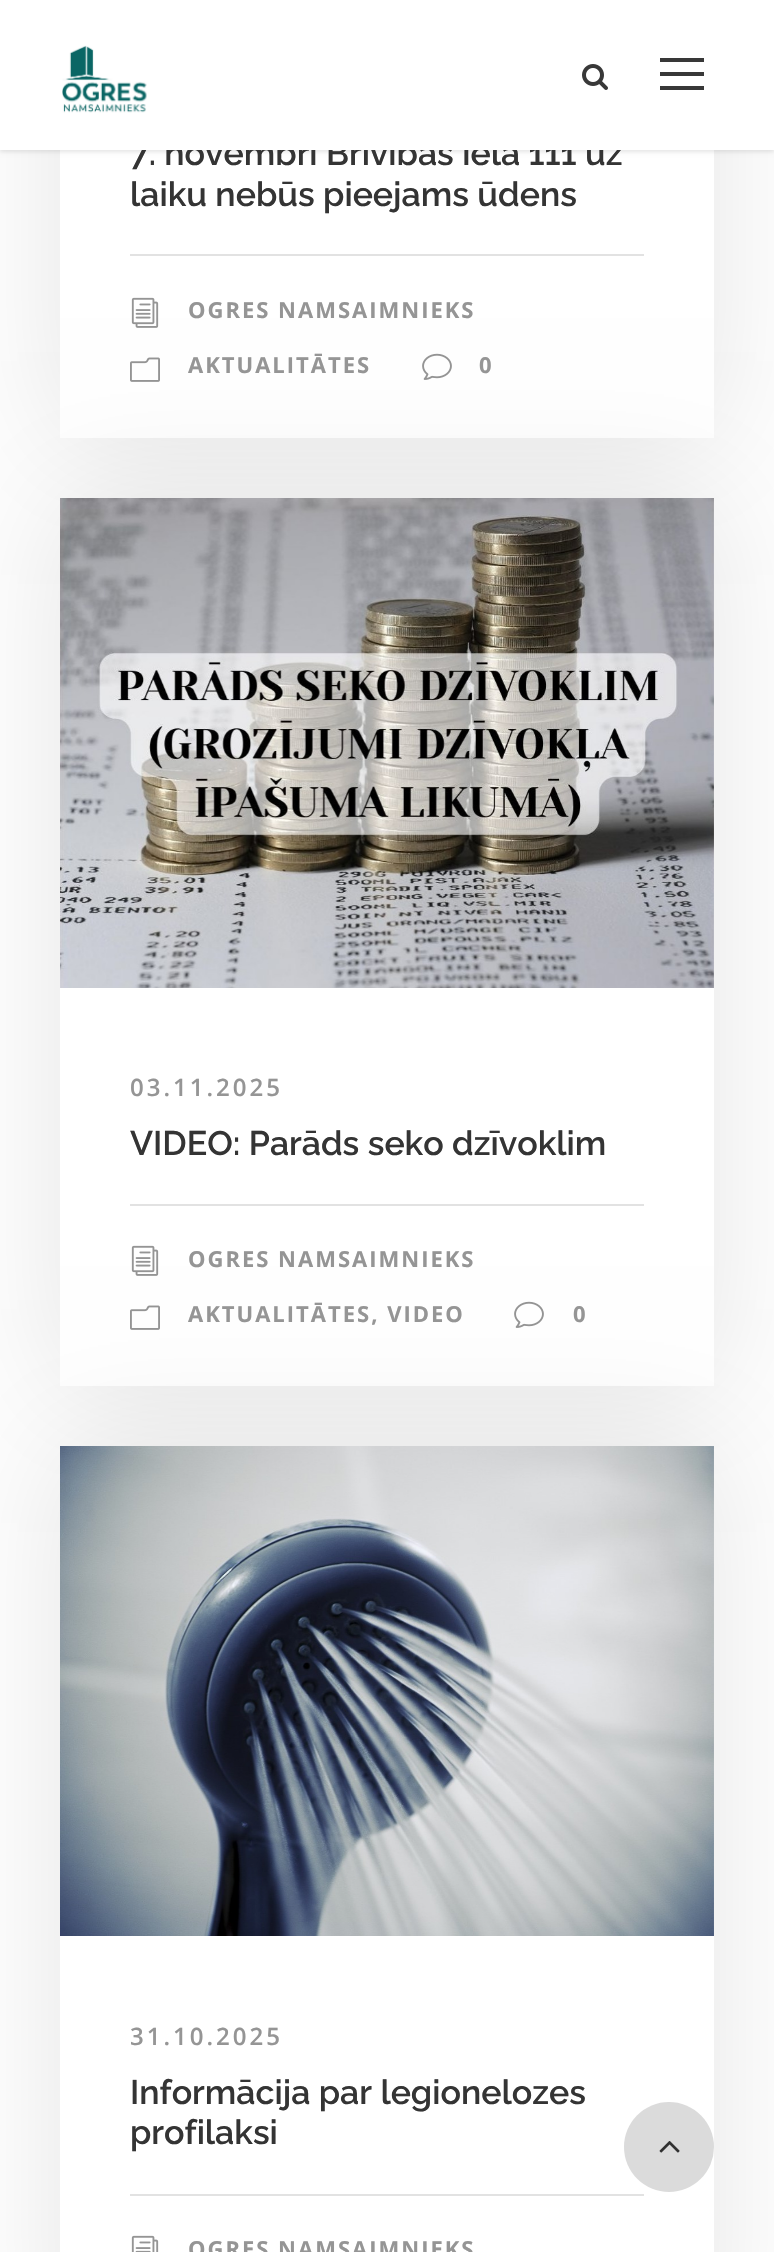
void draw(SkCanvas* canvas) {
  SkPaint paint;
  paint.setAntiAlias(true);
  auto face = [&](const char* family, int weight, float size, bool italic = false) {
    SkFontStyle style(weight, SkFontStyle::kNormal_Width,
      italic ? SkFontStyle::kItalic_Slant : SkFontStyle::kUpright_Slant);
    SkFont result(fontMgr->matchFamilyStyle(family, style), size);
    result.setSubpixel(true);
    return result;
  };
  auto writeSpaced = [&](const char* s, float x, float y, const SkFont& font, const SkPaint& ink, float letter, float word) {
    std::vector<SkGlyphID> glyphs(font.countText(s, strlen(s), SkTextEncoding::kUTF8));
    std::vector<float> xs(glyphs.size());
    font.textToGlyphs(s, strlen(s), SkTextEncoding::kUTF8, glyphs);
    font.getXPos(glyphs, xs, x);
    float extra = 0;
    for (size_t i = 0; i < glyphs.size(); i++) {
      xs[i] += extra;
      extra += letter + word * (glyphs[i] == font.unicharToGlyph(' '));
    }
    canvas->drawTextBlob(SkTextBlob::MakeFromPosHGlyphs(glyphs, xs, y, font), 0, 0, ink);
  };
  auto paste = [&](const char* path, float x, float y, float w, float h) {
    auto image = SkImages::DeferredFromEncodedData(SkData::MakeFromFileName(path));
    canvas->drawImageRect(image, SkRect::MakeXYWH(x, y, w, h), SkSamplingOptions());
  };
  auto shape = [&](const char* data, bool evenOdd = false) {
    SkPath result = *SkParsePath::FromSVGString(data);
    if (evenOdd) result.setFillType(SkPathFillType::kEvenOdd);
    return result;
  };
  canvas->clear(0xffffffff);
  paint.setColor(0x1a000000);
  paint.setMaskFilter(SkMaskFilter::MakeBlur(kNormal_SkBlurStyle, 2));
  canvas->drawRect(SkRect::MakeXYWH(0, 2, 774, 150), paint);
  paint.setMaskFilter(nullptr);
  canvas->save();
  canvas->clipPath(shape("M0 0H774V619H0ZM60-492H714V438H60Z", true), true);
  paint.setMaskFilter(SkMaskFilter::MakeBlur(kNormal_SkBlurStyle, 60));
  canvas->drawRect(SkRect::MakeXYWH(60, -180, 654, 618), paint);
  paint.setMaskFilter(nullptr);
  canvas->restore();
  paint.setColor(0xffe2e2e2);
  canvas->drawRect(SkRect::MakeXYWH(130, 254, 514, 2), paint);
  paste("img/3.png", 131, 297, 28, 31);
  paste("img/4.png", 130, 357, 30, 25);
  paste("img/5.png", 422, 353, 30, 27);
  paint.setColor(0x1a000000);
  paint.setMaskFilter(SkMaskFilter::MakeBlur(kNormal_SkBlurStyle, 60));
  canvas->drawRect(SkRect::MakeXYWH(60, 498, 654, 888), paint);
  paint.setMaskFilter(nullptr);
  paint.setColor(0xffffffff);
  canvas->drawRect(SkRect::MakeXYWH(60, 498, 654, 888), paint);
  paste("img/6.png", 60, 498, 654, 490);
  paint.setColor(0xffe2e2e2);
  canvas->drawRect(SkRect::MakeXYWH(130, 1204, 514, 2), paint);
  paste("img/3.png", 131, 1245, 28, 31);
  paste("img/4.png", 130, 1305, 30, 25);
  paste("img/5.png", 514, 1301, 30, 27);
  paint.setColor(0x1a000000);
  paint.setMaskFilter(SkMaskFilter::MakeBlur(kNormal_SkBlurStyle, 60));
  canvas->drawRect(SkRect::MakeXYWH(60, 1446, 654, 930), paint);
  paint.setMaskFilter(nullptr);
  paint.setColor(0xffffffff);
  canvas->drawRect(SkRect::MakeXYWH(60, 1446, 654, 806), paint);
  paste("img/7.png", 60, 1446, 654, 490);
  paint.setColor(0xffe2e2e2);
  canvas->drawRect(SkRect::MakeXYWH(130, 2194, 514, 2), paint);
  paste("img/8.png", 131, 2235, 28, 17);
  paint.setColor(0xffdbdbdb);
  canvas->drawCircle(669, 2147, 45, paint);
  paste("img/9.png", 659, 2141, 21, 12);
  auto f0 = face("Raleway", 600, 34);
  paint.setColor(0xff343434);
  canvas->drawString("7. novembrī Brīvības ielā 111 uz", 130, 165, f0, paint);
  {
    const struct { float x, y, w, h; SkColor color; } items[] = {
      {0, 0, 774, 150, 0xffffffff},
      {660, 86, 44, 4, 0xff383838},
      {660, 72, 44, 4, 0xff383838},
      {660, 58, 44, 4, 0xff383838},
    };
    for (auto [x, y, w, h, color] : items) {
      paint.setColor(color);
      canvas->drawRect(SkRect::MakeXYWH(x, y, w, h), paint);
    }
  }
  paste("img/2.png", 582, 64, 26, 26);
  paste("img/1.png", 62, 45, 85, 68);
  paint.setColor(0xff343434);
  canvas->drawString("laiku nebūs pieejams ūdens", 130, 206, f0, paint);
  auto f1 = face("Open Sans", 700, 22);
  paint.setColor(0xff959595);
  {
    const struct { const char* s; float x, y; } items[] = {
      {"OGRES NAMSAIMNIEKS", 188, 318},
      {"AKTUALITĀTES", 188, 373},
      {"0", 479, 373},
    };
    for (auto [s, x, y] : items) {
      writeSpaced(s, x, y, f1, paint, 2, 0);
    }
  }
  auto f2 = face("Open Sans", 600, 24);
  writeSpaced("03.11.2025", 130, 1096, f2, paint, 3, 0);
  paint.setColor(0xff343434);
  canvas->drawString("VIDEO: Parāds seko dzīvoklim", 130, 1155, f0, paint);
  paint.setColor(0xff959595);
  {
    const struct { const char* s; float x, y; } items[] = {
      {"OGRES NAMSAIMNIEKS", 188, 1267},
      {"AKTUALITĀTES, VIDEO", 188, 1322},
      {"0", 573, 1322},
    };
    for (auto [s, x, y] : items) {
      writeSpaced(s, x, y, f1, paint, 2, 0);
    }
  }
  writeSpaced("31.10.2025", 130, 2045, f2, paint, 3, 0);
  paint.setColor(0xff343434);
  canvas->drawString("Informācija par legionelozes", 130, 2104, f0, paint);
  canvas->drawString("profilaksi", 130, 2144, f0, paint);
  paint.setColor(0xff959595);
  writeSpaced("OGRES NAMSAIMNIEKS", 188, 2257, f1, paint, 2, 0);
}
